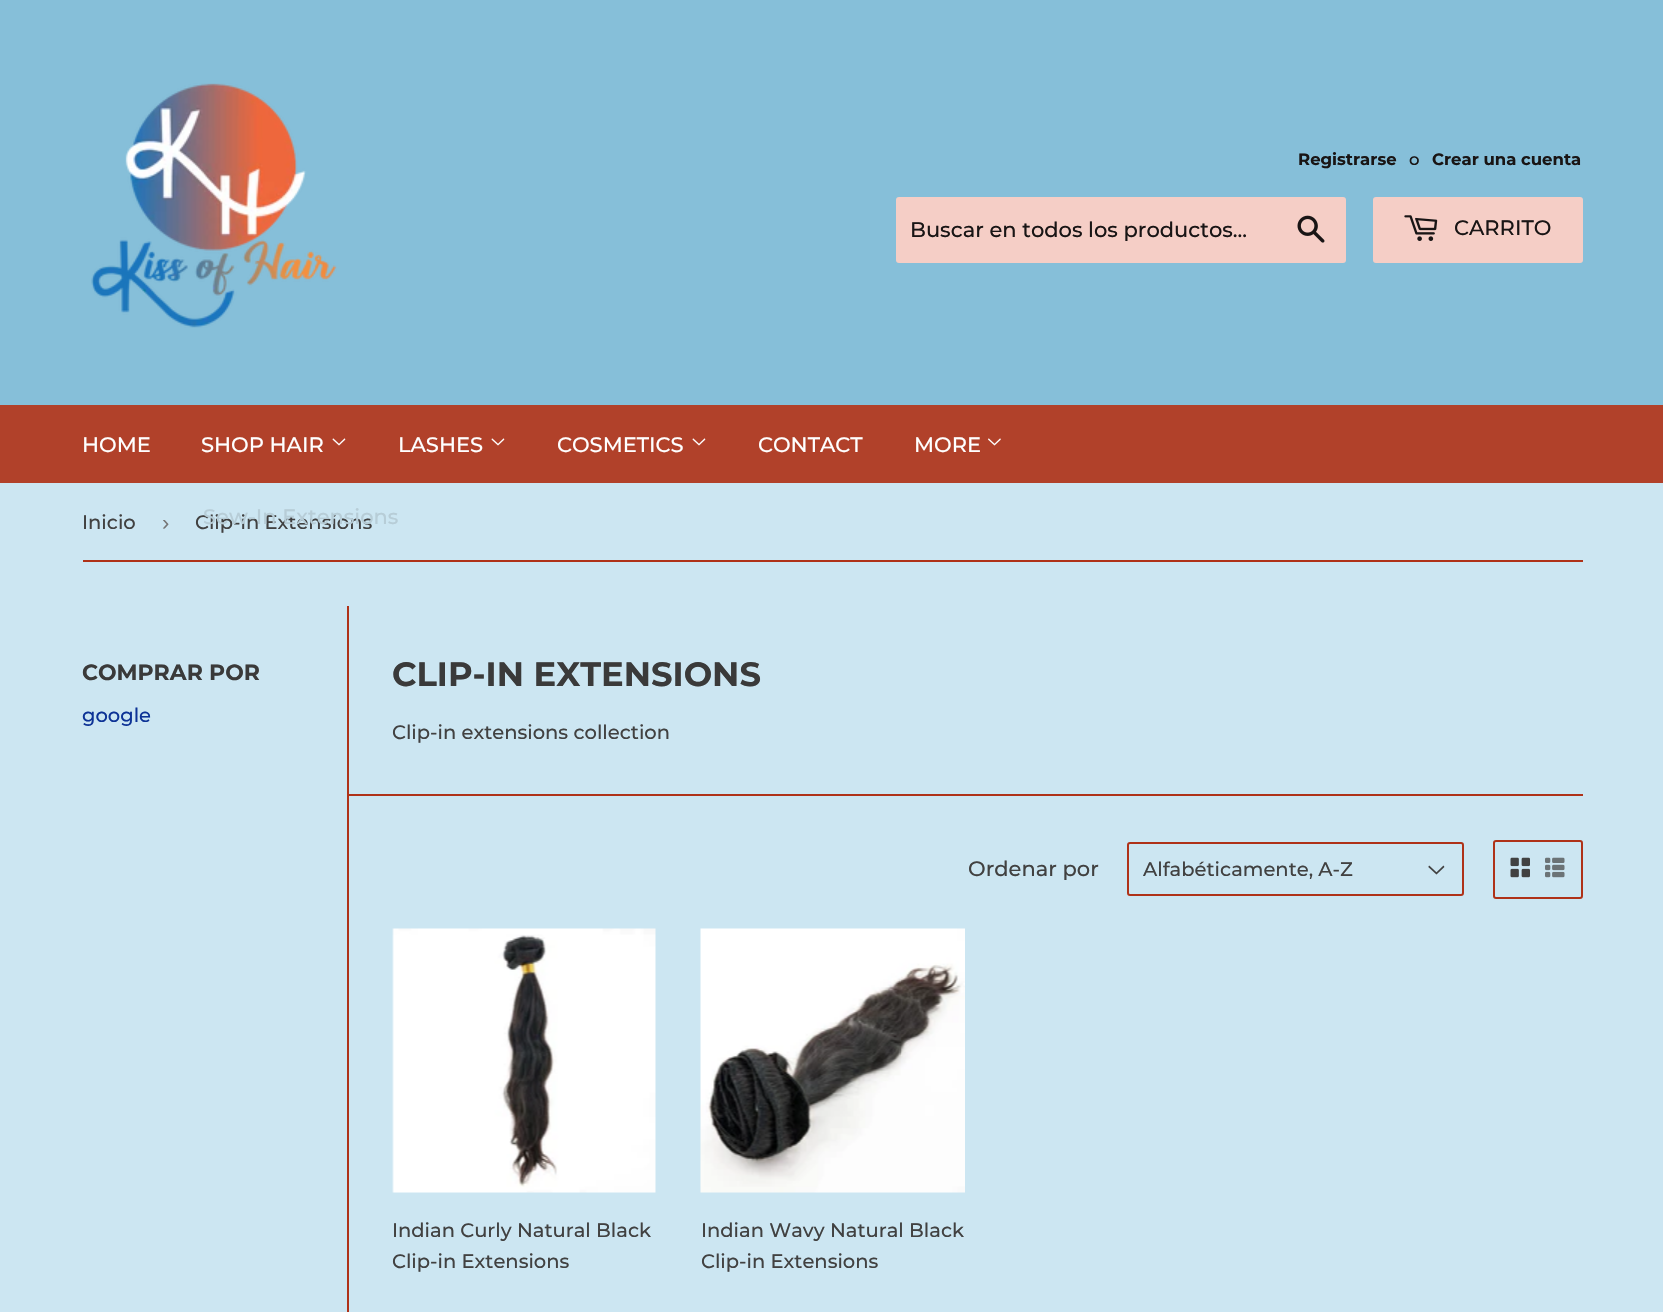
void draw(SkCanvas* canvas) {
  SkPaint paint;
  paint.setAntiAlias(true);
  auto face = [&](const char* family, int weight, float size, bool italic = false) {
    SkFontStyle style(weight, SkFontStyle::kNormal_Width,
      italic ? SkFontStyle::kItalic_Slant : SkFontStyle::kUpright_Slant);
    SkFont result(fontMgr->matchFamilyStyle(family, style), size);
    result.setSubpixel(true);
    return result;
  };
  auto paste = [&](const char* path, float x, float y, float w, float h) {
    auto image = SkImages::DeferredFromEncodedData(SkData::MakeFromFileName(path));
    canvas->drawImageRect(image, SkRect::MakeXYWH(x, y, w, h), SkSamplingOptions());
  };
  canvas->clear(0xffcce6f2);
  paint.setColor(0xff86bfd9);
  canvas->drawRect(SkRect::MakeXYWH(0, 0, 1663, 405), paint);
  paste("img/1.png", 91, 83, 246, 245);
  paint.setColor(0xfff5cec6);
  canvas->drawRoundRect(SkRect::MakeXYWH(896, 197, 450, 66), 3, 3, paint);
  paste("img/2.png", 1297, 215, 28, 28);
  canvas->drawRoundRect(SkRect::MakeXYWH(1373, 197, 210, 66), 3, 3, paint);
  paste("img/3.png", 1404, 215, 34, 26);
  paint.setColor(0xffb1412a);
  canvas->drawRect(SkRect::MakeXYWH(0, 405, 1663, 78), paint);
  paste("img/4.png", 332, 438, 14, 8);
  paste("img/4.png", 491, 438, 14, 8);
  paste("img/4.png", 692, 438, 14, 8);
  paste("img/5.png", 988, 438, 13, 8);
  {
    const struct { float x, y, w, h; SkColor color; } items[] = {
      {83, 560, 1500, 2, 0xffaf3218},
      {347, 606, 2, 706, 0xffaf3218},
      {348, 794, 1235, 2, 0xffaf3218},
    };
    for (auto [x, y, w, h, color] : items) {
      paint.setColor(color);
      canvas->drawRect(SkRect::MakeXYWH(x, y, w, h), paint);
    }
  }
  paste("img/6.png", 1428, 865, 17, 10);
  paint.setStroke(true);
  paint.setStrokeWidth(2);
  canvas->drawRoundRect(SkRect::MakeXYWH(1128, 843, 335, 52), 2, 2, paint);
  canvas->drawRoundRect(SkRect::MakeXYWH(1494, 841, 88, 57), 2, 2, paint);
  paste("img/7.png", 1510, 857, 20, 21);
  paste("img/8.png", 1545, 857, 20, 21);
  paste("img/9.png", 392, 928, 264, 265);
  paste("img/10.png", 700, 928, 265, 265);
  auto f0 = face("Montserrat", 700, 16.5f);
  paint.setStroke(false);
  paint.setColor(0xff191515);
  canvas->drawString("Registrarse", 1298, 165, f0, paint);
  auto f1 = face("Montserrat", 500, 16.5f);
  canvas->drawString("o", 1409, 165, f1, paint);
  canvas->drawString("Crear una cuenta", 1432, 165, f0, paint);
  auto f2 = face("Montserrat", 500, 21);
  canvas->drawString("Buscar en todos los productos...", 910, 237, f2, paint);
  canvas->drawString("CARRITO", 1454, 235, f2, paint);
  paint.setColor(0xffffffff);
  {
    const struct { const char* s; float x, y; } items[] = {
      {"HOME", 82, 452},
      {"SHOP HAIR", 201, 452},
      {"LASHES", 398, 452},
      {"COSMETICS", 557, 452},
      {"CONTACT", 758, 452},
      {"MORE", 914, 452},
    };
    for (auto [s, x, y] : items) {
      canvas->drawString(s, x, y, f2, paint);
    }
  }
  auto f3 = face("Montserrat", 500, 19.5f);
  paint.setColor(0xff414141);
  canvas->drawString("Inicio", 82, 529, f3, paint);
  auto f4 = face("Liberation Sans", 400, 22);
  paint.setColor(0xff767676);
  canvas->drawString("›", 162, 530, f4, paint);
  paint.setColor(0xff414141);
  canvas->drawString("Clip-in Extensions", 195, 529, f3, paint);
  paint.setColor(0xffb7cdd7);
  canvas->drawString("Sew-In Extensions", 203, 524, f2, paint);
  auto f5 = face("Montserrat", 700, 22);
  paint.setColor(0xff3a3a3a);
  canvas->drawString("COMPRAR POR", 82, 680, f5, paint);
  paint.setColor(0xff0d3396);
  canvas->drawString("google", 82, 722, f3, paint);
  auto f6 = face("Montserrat", 700, 33.75f);
  paint.setColor(0xff3a3a3a);
  canvas->drawString("CLIP-IN EXTENSIONS", 392, 686, f6, paint);
  paint.setColor(0xff414141);
  canvas->drawString("Clip-in extensions collection", 392, 739, f3, paint);
  canvas->drawString("Ordenar por", 968, 876, f2, paint);
  {
    const struct { const char* s; float x, y; } items[] = {
      {"Alfabéticamente, A-Z", 1143, 876},
      {"Indian Curly Natural Black", 392, 1237},
      {"Clip-in Extensions", 392, 1268},
      {"Indian Wavy Natural Black", 701, 1237},
      {"Clip-in Extensions", 701, 1268},
    };
    for (auto [s, x, y] : items) {
      canvas->drawString(s, x, y, f3, paint);
    }
  }
}
